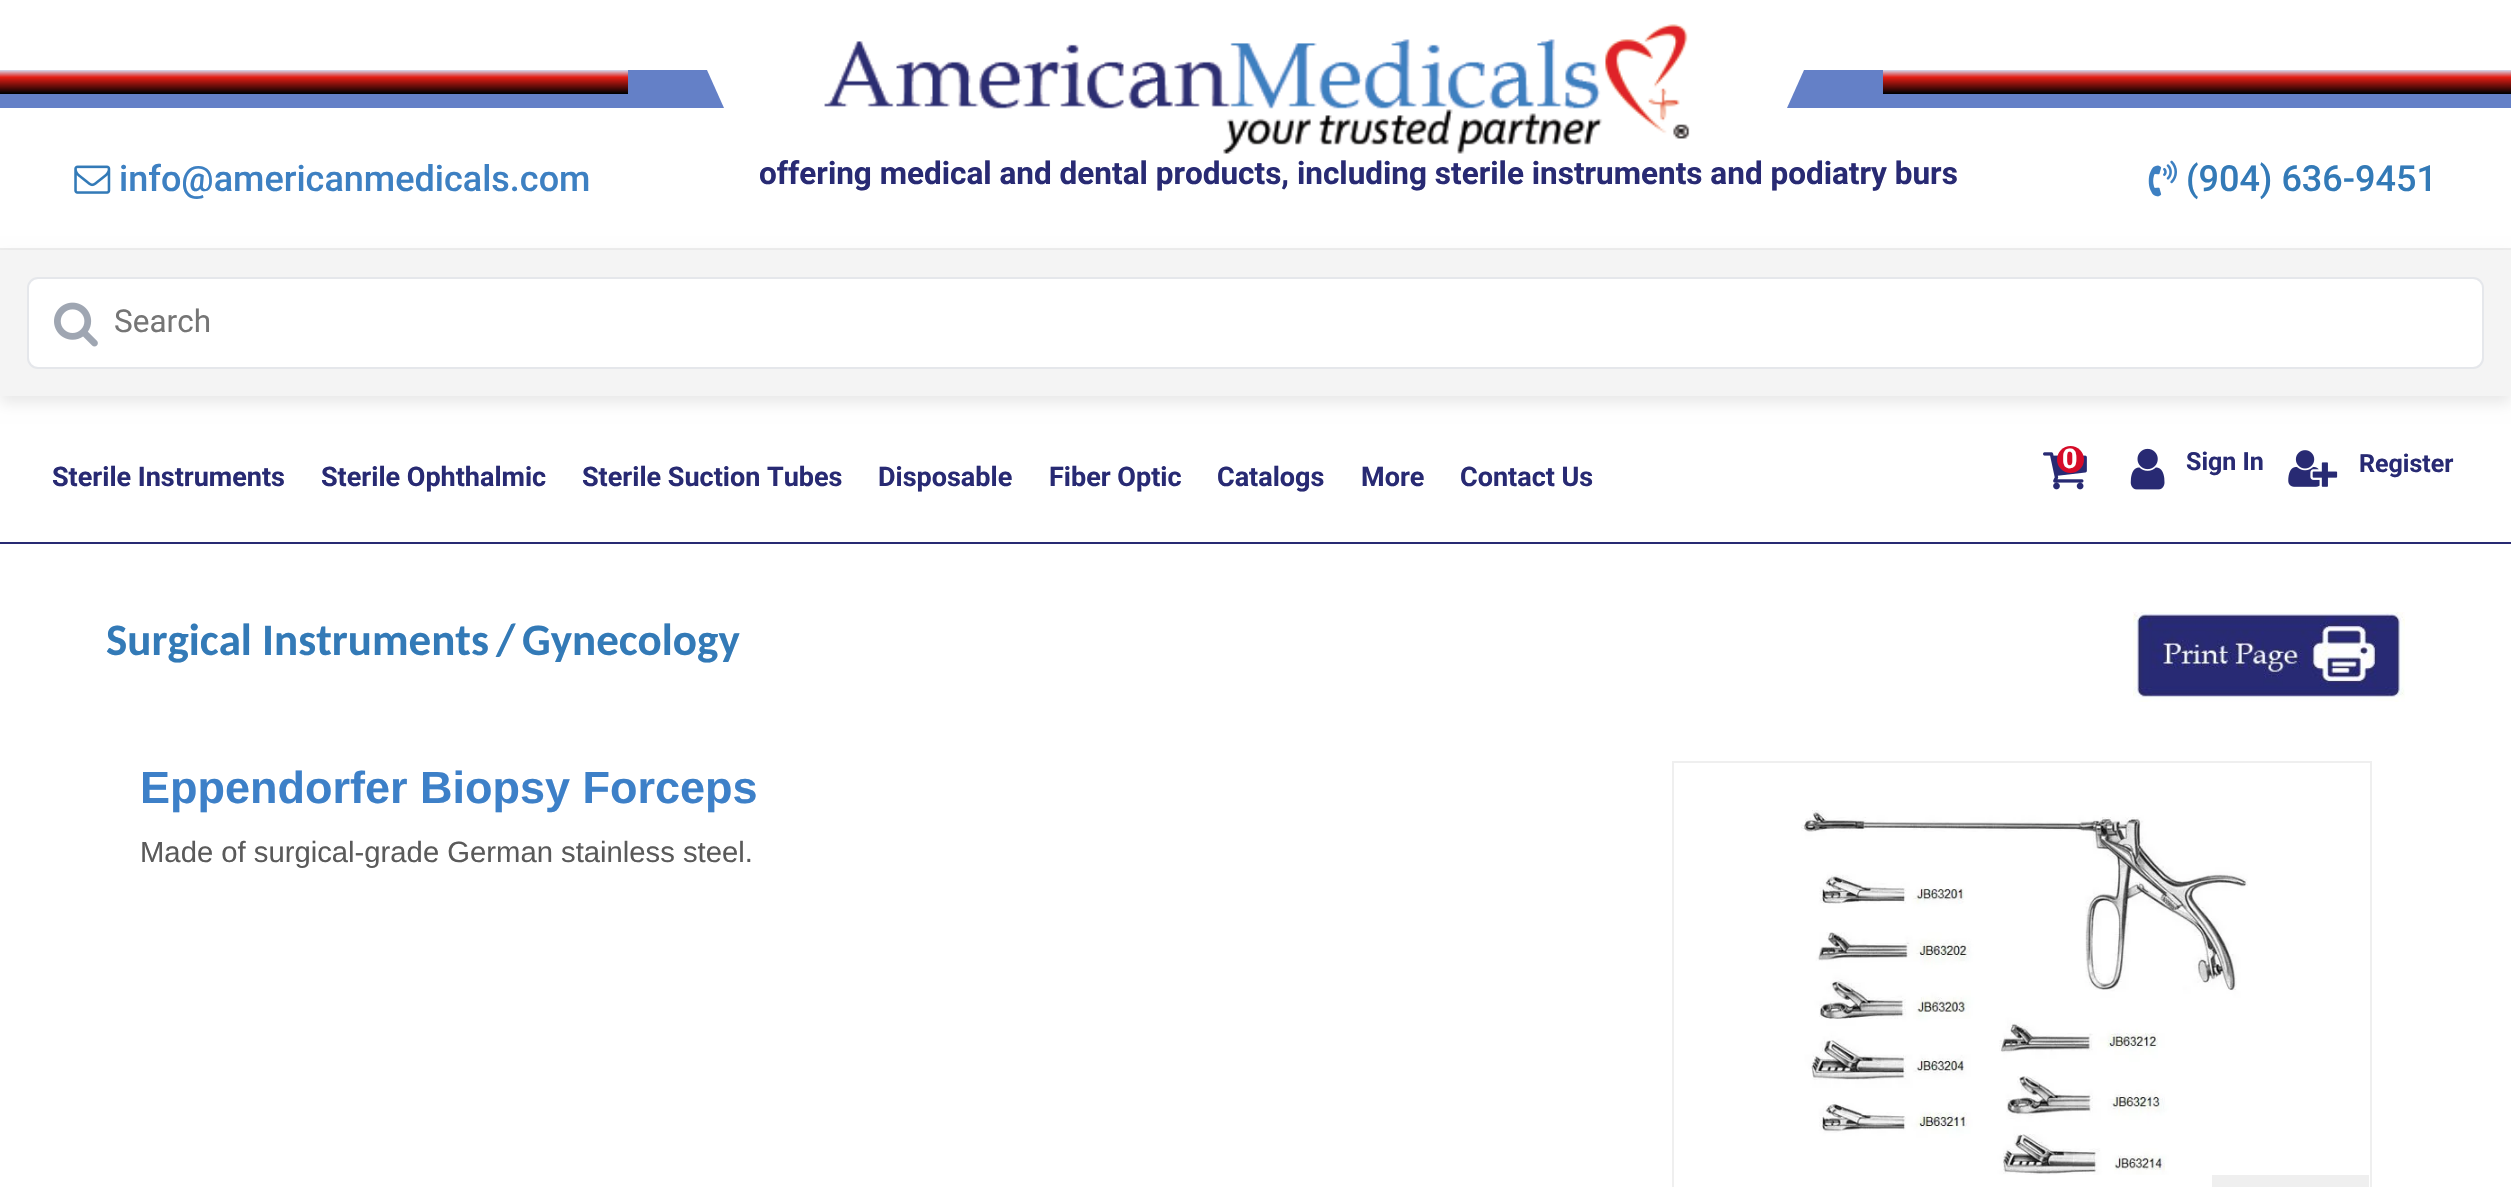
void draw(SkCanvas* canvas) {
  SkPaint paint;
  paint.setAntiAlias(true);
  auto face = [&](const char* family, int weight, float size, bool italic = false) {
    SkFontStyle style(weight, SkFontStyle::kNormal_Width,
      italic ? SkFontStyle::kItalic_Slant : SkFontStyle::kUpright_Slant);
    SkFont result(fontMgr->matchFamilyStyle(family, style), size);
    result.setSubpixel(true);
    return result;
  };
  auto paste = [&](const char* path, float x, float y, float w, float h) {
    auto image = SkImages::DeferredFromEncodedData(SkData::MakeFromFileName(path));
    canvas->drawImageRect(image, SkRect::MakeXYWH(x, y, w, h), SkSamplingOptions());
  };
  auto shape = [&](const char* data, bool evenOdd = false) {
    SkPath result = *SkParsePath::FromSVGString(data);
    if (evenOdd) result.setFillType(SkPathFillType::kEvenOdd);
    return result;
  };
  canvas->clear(0xffffffff);
  paint.setColor(0xffeeeeee);
  canvas->drawRect(SkRect::MakeXYWH(0, 248, 2511, 2), paint);
  {
    const SkColor colors[] = {0xff4d6ebf, 0xffe7261f, 0xffd2daef, 0xffe41d14, 0xff000000, 0xff6480c7};
    const float stops[] = {0, 0, 0, 0.19f, 0.62f, 0.63f};
    const SkPoint ends[] = {{393, 70}, {411, 108}};
    paint.setShader(SkGradientShader::MakeLinear(ends, colors, stops, 6, SkTileMode::kClamp));
    paint.setAlpha(255);
  }
  canvas->drawPath(shape("M79 70H707L724 108H97Z"), paint);
  {
    const SkColor colors[] = {0xff4d6ebf, 0xffe7261f, 0xffd2daef, 0xffe41d14, 0xff000000, 0xff6480c7};
    const float stops[] = {0, 0, 0, 0.19f, 0.62f, 0.63f};
    const SkPoint ends[] = {{314, 70}, {314, 108}};
    paint.setShader(SkGradientShader::MakeLinear(ends, colors, stops, 6, SkTileMode::kClamp));
    paint.setAlpha(255);
  }
  canvas->drawRect(SkRect::MakeXYWH(0, 70, 628, 38), paint);
  paste("img/1.png", 824, 24, 866, 130);
  {
    const SkColor colors[] = {0xff4d6ebf, 0xffe7261f, 0xffd2daef, 0xffe41d14, 0xff000000, 0xff6480c7};
    const float stops[] = {0, 0, 0, 0.19f, 0.62f, 0.63f};
    const SkPoint ends[] = {{2118, 70}, {2100, 108}};
    paint.setShader(SkGradientShader::MakeLinear(ends, colors, stops, 6, SkTileMode::kClamp));
    paint.setAlpha(255);
  }
  canvas->drawPath(shape("M1804 70H2432L2414 108H1787Z"), paint);
  {
    const SkColor colors[] = {0xff4d6ebf, 0xffe7261f, 0xffd2daef, 0xffe41d14, 0xff000000, 0xff6480c7};
    const float stops[] = {0, 0, 0, 0.19f, 0.62f, 0.63f};
    const SkPoint ends[] = {{2197, 70}, {2197, 108}};
    paint.setShader(SkGradientShader::MakeLinear(ends, colors, stops, 6, SkTileMode::kClamp));
    paint.setAlpha(255);
  }
  canvas->drawRect(SkRect::MakeXYWH(1883, 70, 628, 38), paint);
  paste("img/2.png", 74, 165, 37, 29);
  paste("img/3.png", 2148, 160, 29, 37);
  paint.setShader(nullptr);
  paint.setColor(0x17000000);
  paint.setMaskFilter(SkMaskFilter::MakeBlur(kNormal_SkBlurStyle, 7));
  canvas->drawRect(SkRect::MakeXYWH(0, 257, 2511, 146), paint);
  paint.setMaskFilter(nullptr);
  paint.setColor(0xfff4f4f4);
  canvas->drawRect(SkRect::MakeXYWH(0, 250, 2511, 146), paint);
  paint.setColor(0xffffffff);
  canvas->drawRoundRect(SkRect::MakeXYWH(28, 278, 2455, 90), 10, 10, paint);
  paint.setStroke(true);
  paint.setStrokeWidth(2);
  paint.setColor(0xffe5e7eb);
  canvas->drawRoundRect(SkRect::MakeXYWH(28, 278, 2455, 90), 10, 10, paint);
  paste("img/4.png", 54, 302, 44, 45);
  paint.setStroke(false);
  paint.setColor(0xff282a73);
  canvas->drawRect(SkRect::MakeXYWH(0, 542, 2511, 2), paint);
  paste("img/5.png", 2043, 452, 44, 38);
  paint.setColor(0xffd60b28);
  canvas->drawCircle(2070.5f, 459.5f, 13.5f, paint);
  paste("img/6.png", 2130, 448, 35, 42);
  paste("img/7.png", 2288, 450, 50, 37);
  paste("img/8.png", 2133, 612, 272, 90);
  paint.setStroke(true);
  paint.setColor(0xffefefef);
  canvas->drawRect(SkRect::MakeXYWH(1673, 762, 698, 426), paint);
  paste("img/9.png", 1801, 810, 447, 365);
  paint.setStroke(false);
  canvas->drawRect(SkRect::MakeXYWH(2212, 1175, 157, 12), paint);
  auto f0 = face("Roboto", 500, 36);
  paint.setColor(0xff3d80c2);
  canvas->drawString("info@americanmedicals.com", 119, 191, f0, paint);
  auto f1 = face("Roboto", 700, 31.5f);
  paint.setColor(0xff282a73);
  canvas->drawString("offering medical and dental products, including sterile instruments and podiatry burs", 759, 184, f1, paint);
  paint.setColor(0xff337ab7);
  canvas->drawString("(904) 636-9451", 2186, 191, f0, paint);
  auto f2 = face("Roboto", 400, 31.5f);
  paint.setColor(0xff757575);
  canvas->drawString("Search", 114, 332, f2, paint);
  auto f3 = face("Roboto", 700, 27);
  paint.setColor(0xff282a73);
  {
    const struct { const char* s; float x, y; } items[] = {
      {"Sterile Instruments", 52, 486},
      {"Sterile Ophthalmic", 321, 486},
      {"Sterile Suction Tubes", 582, 486},
      {"Disposable", 878, 486},
      {"Fiber Optic", 1049, 486},
      {"Catalogs", 1217, 486},
      {"More", 1361, 486},
      {"Contact Us", 1460, 486},
    };
    for (auto [s, x, y] : items) {
      canvas->drawString(s, x, y, f3, paint);
    }
  }
  paint.setColor(0xffffffff);
  canvas->drawString("0", 2062, 468, f3, paint);
  auto f4 = face("Roboto", 700, 25);
  paint.setColor(0xff282a73);
  canvas->drawString("Sign In", 2186, 470, f4, paint);
  canvas->drawString("Register", 2359, 472, f4, paint);
  auto f5 = face("Carlito", 700, 45);
  paint.setColor(0xff337ab7);
  {
    const struct { const char* s; float x, y; } items[] = {
      {"Surgical Instruments", 106, 655},
      {"/", 496, 655},
      {"Gynecology", 522, 655},
    };
    for (auto [s, x, y] : items) {
      canvas->drawString(s, x, y, f5, paint);
    }
  }
  auto f6 = face("Liberation Sans", 700, 45);
  paint.setColor(0xff3d80c8);
  canvas->drawString("Eppendorfer Biopsy Forceps", 140, 803, f6, paint);
  auto f7 = face("Liberation Sans", 400, 29.25f);
  paint.setColor(0xff5a5a5a);
  canvas->drawString("Made of surgical-grade German stainless steel.", 140, 862, f7, paint);
}
